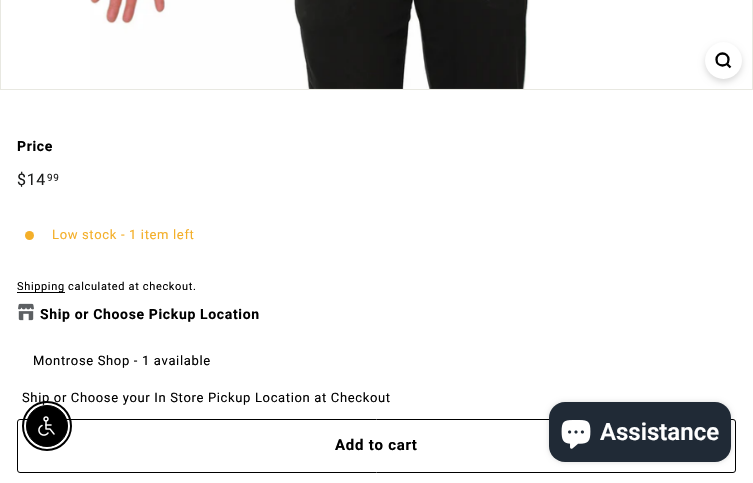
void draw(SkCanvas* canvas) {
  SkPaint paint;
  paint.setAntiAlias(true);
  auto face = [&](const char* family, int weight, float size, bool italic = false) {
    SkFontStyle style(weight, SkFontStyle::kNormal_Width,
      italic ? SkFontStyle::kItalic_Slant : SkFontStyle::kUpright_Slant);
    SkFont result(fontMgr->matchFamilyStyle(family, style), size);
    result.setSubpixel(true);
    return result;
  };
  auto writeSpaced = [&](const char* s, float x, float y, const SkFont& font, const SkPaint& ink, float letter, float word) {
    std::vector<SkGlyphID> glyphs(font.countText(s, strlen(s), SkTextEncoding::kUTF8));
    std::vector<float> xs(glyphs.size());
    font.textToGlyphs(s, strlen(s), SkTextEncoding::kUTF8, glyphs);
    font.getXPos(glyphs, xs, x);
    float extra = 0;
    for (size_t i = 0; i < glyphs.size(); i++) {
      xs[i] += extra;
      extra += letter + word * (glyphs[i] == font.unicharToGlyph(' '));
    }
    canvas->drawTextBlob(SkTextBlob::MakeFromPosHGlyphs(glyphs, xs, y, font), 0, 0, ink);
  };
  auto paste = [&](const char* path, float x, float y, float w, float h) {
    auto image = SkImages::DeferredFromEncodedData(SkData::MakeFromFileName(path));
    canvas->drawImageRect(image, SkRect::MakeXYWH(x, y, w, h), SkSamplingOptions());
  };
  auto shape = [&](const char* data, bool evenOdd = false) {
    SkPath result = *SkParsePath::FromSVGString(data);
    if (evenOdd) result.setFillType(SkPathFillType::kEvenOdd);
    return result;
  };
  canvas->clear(0xffffffff);
  paint.setStroke(true);
  paint.setStrokeWidth(1);
  paint.setColor(0xffe8e8e1);
  canvas->drawRect(SkRect::MakeXYWH(0.5f, -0.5f, 752, 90), paint);
  paste("img/1.png", 90, 0, 440, 89);
  paint.setStroke(false);
  paint.setColor(0x26000000);
  paint.setMaskFilter(SkMaskFilter::MakeBlur(kNormal_SkBlurStyle, 3));
  canvas->drawRoundRect(SkRect::MakeXYWH(705, 45, 37, 37), 18.5f, 18.5f, paint);
  paint.setMaskFilter(nullptr);
  paint.setColor(0xffffffff);
  canvas->drawCircle(723.5f, 60.5f, 18.5f, paint);
  paint.setStroke(true);
  paint.setStrokeWidth(2.3f);
  paint.setColor(0xff000000);
  canvas->drawPath(shape("M728.5 59.5C728.5 67.5 716.5 67.5 716.5 59.5C716.5 51.5 728.5 51.5 728.5 59.5ZM730.5 67.5L727 64"), paint);
  paint.setStroke(false);
  paint.setColor(0xfff4af29);
  canvas->drawCircle(29.5f, 235.5f, 4.5f, paint);
  paint.setColor(0xff000000);
  canvas->drawRect(SkRect::MakeXYWH(17, 292, 48, 1), paint);
  paste("img/2.png", 18, 303, 16, 18);
  paint.setStroke(true);
  paint.setStrokeWidth(1);
  canvas->drawRoundRect(SkRect::MakeXYWH(17.5f, 419.5f, 718, 53), 2.5f, 2.5f, paint);
  paint.setStrokeWidth(2);
  canvas->drawCircle(47, 426, 24, paint);
  paint.setStroke(false);
  canvas->drawCircle(47, 426, 20.5f, paint);
  paint.setStroke(true);
  paint.setStrokeWidth(1);
  canvas->drawCircle(47, 426, 20.5f, paint);
  paste("img/3.png", 38, 416, 17, 20);
  paint.setStroke(false);
  paint.setColor(0x26000000);
  paint.setMaskFilter(SkMaskFilter::MakeBlur(kNormal_SkBlurStyle, 2.5f));
  canvas->drawRoundRect(SkRect::MakeXYWH(549, 402, 182, 60), 16, 16, paint);
  paint.setMaskFilter(nullptr);
  paint.setColor(0xff202a36);
  canvas->drawRoundRect(SkRect::MakeXYWH(549, 402, 182, 60), 16, 16, paint);
  paste("img/4.png", 561, 420, 30, 29);
  auto f0 = face("Roboto", 700, 14);
  paint.setColor(0xff000000);
  writeSpaced("Price", 17, 151, f0, paint, 0.65f, 0);
  auto f1 = face("Roboto", 400, 16);
  paint.setColor(0xff1c1d1d);
  writeSpaced("$14", 17, 185, f1, paint, 0.65f, 0);
  auto f2 = face("Roboto", 400, 10);
  writeSpaced("99", 47, 181, f2, paint, 0.65f, 0);
  auto f3 = face("Roboto", 400, 13);
  paint.setColor(0xfff4af29);
  writeSpaced("Low stock - 1 item left", 52, 239, f3, paint, 0.65f, 0);
  auto f4 = face("Roboto", 400, 11);
  paint.setColor(0xff000000);
  writeSpaced("Shipping calculated at checkout.", 17, 290, f4, paint, 0.65f, 0);
  writeSpaced("Ship or Choose Pickup Location", 40, 319, f0, paint, 0.65f, 0);
  writeSpaced("Montrose Shop - 1 available", 33, 365, f3, paint, 0.65f, 0);
  writeSpaced("Ship or Choose your In Store Pickup Location at Checkout", 22, 402, f3, paint, 0.65f, 0);
  auto f5 = face("Roboto", 700, 15);
  writeSpaced("Add to cart", 335, 450, f5, paint, 0.75f, 0);
  auto f6 = face("Roboto", 600, 24);
  paint.setColor(0xffffffff);
  canvas->drawString("Assistance", 600, 440, f6, paint);
}
